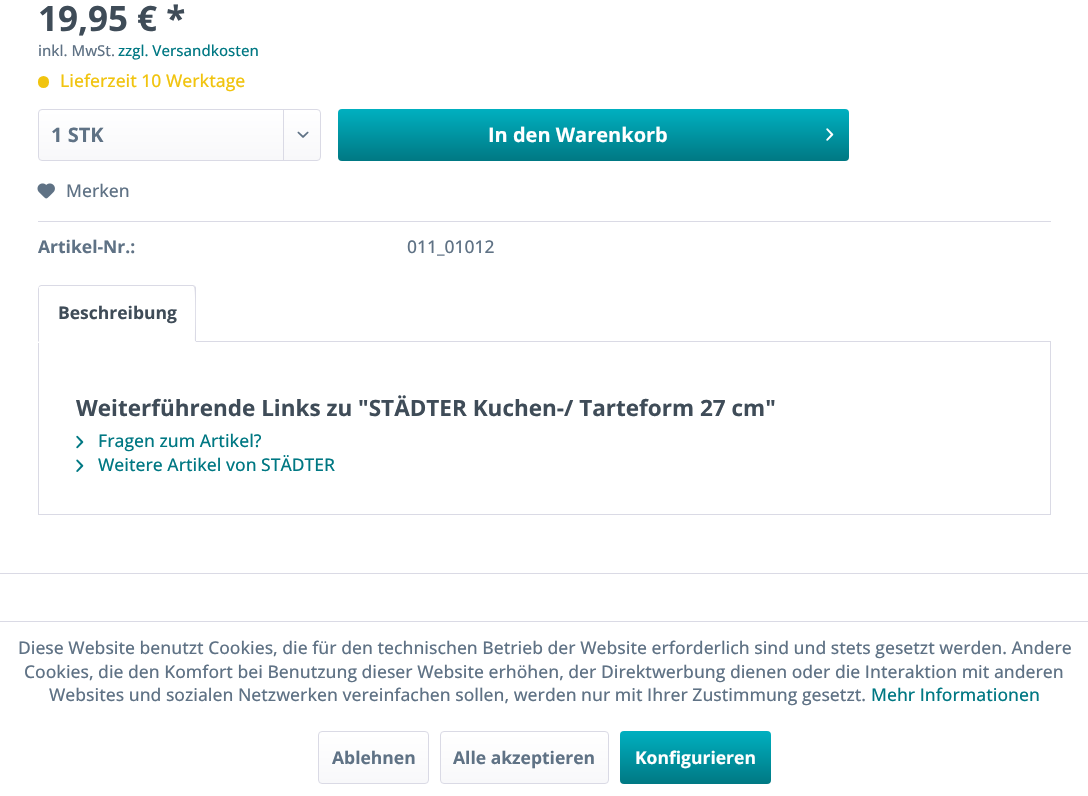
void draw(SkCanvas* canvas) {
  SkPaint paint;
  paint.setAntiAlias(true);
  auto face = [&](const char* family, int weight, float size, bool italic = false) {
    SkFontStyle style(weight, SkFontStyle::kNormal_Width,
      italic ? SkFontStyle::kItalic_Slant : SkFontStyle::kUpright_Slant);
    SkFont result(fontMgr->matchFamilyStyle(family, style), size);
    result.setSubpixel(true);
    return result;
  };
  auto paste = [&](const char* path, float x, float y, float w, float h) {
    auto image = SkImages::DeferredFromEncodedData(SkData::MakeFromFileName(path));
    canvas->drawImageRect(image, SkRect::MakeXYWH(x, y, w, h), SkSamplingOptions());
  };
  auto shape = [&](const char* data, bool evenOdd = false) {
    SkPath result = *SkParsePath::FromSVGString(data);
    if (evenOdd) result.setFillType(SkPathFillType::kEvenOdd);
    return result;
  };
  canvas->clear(0xffffffff);
  paint.setColor(0xfff1c40f);
  canvas->drawRoundRect(SkRect::MakeXYWH(38, 76, 11, 12), 5.5f, 5.5f, paint);
  {
    const SkColor colors[] = {0xffffffff, 0xfff8f8fa};
    const float stops[] = {0, 1};
    const SkPoint ends[] = {{179, 110}, {179, 160}};
    paint.setShader(SkGradientShader::MakeLinear(ends, colors, stops, 2, SkTileMode::kClamp));
    paint.setAlpha(255);
  }
  canvas->drawRoundRect(SkRect::MakeXYWH(39, 110, 281, 50), 2.5f, 2.5f, paint);
  paint.setStroke(true);
  paint.setStrokeWidth(1);
  paint.setShader(nullptr);
  paint.setColor(0xffdadae5);
  canvas->drawRoundRect(SkRect::MakeXYWH(38.5f, 109.5f, 282, 51), 3.5f, 3.5f, paint);
  paint.setStroke(false);
  canvas->drawRect(SkRect::MakeXYWH(283, 110, 1, 50), paint);
  paste("img/1.png", 297, 131, 12, 7);
  {
    const SkColor colors[] = {0xff00b0c0, 0xff007883};
    const float stops[] = {0, 1};
    const SkPoint ends[] = {{593, 109}, {593, 161}};
    paint.setShader(SkGradientShader::MakeLinear(ends, colors, stops, 2, SkTileMode::kClamp));
    paint.setAlpha(255);
  }
  canvas->drawRoundRect(SkRect::MakeXYWH(338, 109, 511, 52), 4, 4, paint);
  paste("img/2.png", 826, 128, 8, 13);
  paint.setShader(nullptr);
  paint.setColor(0xffdadae5);
  canvas->drawRect(SkRect::MakeXYWH(38, 221, 1013, 1), paint);
  paste("img/3.png", 37, 183, 18, 16);
  paint.setStroke(true);
  canvas->drawRect(SkRect::MakeXYWH(38.5f, 341.5f, 1012, 173), paint);
  paint.setStroke(false);
  paint.setColor(0xffffffff);
  canvas->drawPath(shape("M42 285H192C194 285 196 287 196 289V343H38V289C38 287 40 285 42 285Z"), paint);
  paint.setColor(0xffdadae5);
  canvas->drawPath(shape("M41 285L39 286V287L41 286H193L194 287L195 286C194 285 193 285 192 285Z"), paint);
  canvas->drawPath(shape("M195 286C196 287 196 288 196 289V342L195 341C195 335 196 289 194 287Z"), paint);
  paint.setColor(0xffffffff);
  canvas->drawPath(shape("M196 342H38L39 341H195Z"), paint);
  paint.setColor(0xffdadae5);
  canvas->drawPath(shape("M39 286L38 289V342L39 341V289V287Z"), paint);
  paste("img/4.png", 76, 435, 8, 14);
  paste("img/5.png", 76, 459, 8, 13);
  canvas->drawRect(SkRect::MakeXYWH(0, 573, 1088, 1), paint);
  canvas->drawRect(SkRect::MakeXYWH(0, 621, 1088, 1), paint);
  {
    const SkColor colors[] = {0xffffffff, 0xfff8f8fa};
    const float stops[] = {0, 1};
    const SkPoint ends[] = {{373, 733}, {373, 783}};
    paint.setShader(SkGradientShader::MakeLinear(ends, colors, stops, 2, SkTileMode::kClamp));
    paint.setAlpha(255);
  }
  canvas->drawRoundRect(SkRect::MakeXYWH(319, 733, 109, 50), 2.5f, 2.5f, paint);
  paint.setStroke(true);
  paint.setShader(nullptr);
  paint.setColor(0xffdadae5);
  canvas->drawRoundRect(SkRect::MakeXYWH(318.5f, 731.5f, 110, 52), 3.5f, 3.5f, paint);
  paint.setStroke(false);
  {
    const SkColor colors[] = {0xffffffff, 0xfff8f8fa};
    const float stops[] = {0, 1};
    const SkPoint ends[] = {{524, 733}, {524, 783}};
    paint.setShader(SkGradientShader::MakeLinear(ends, colors, stops, 2, SkTileMode::kClamp));
    paint.setAlpha(255);
  }
  canvas->drawRoundRect(SkRect::MakeXYWH(441, 733, 167, 50), 2.5f, 2.5f, paint);
  paint.setStroke(true);
  paint.setShader(nullptr);
  paint.setColor(0xffdadae5);
  canvas->drawRoundRect(SkRect::MakeXYWH(440.5f, 731.5f, 168, 52), 3.5f, 3.5f, paint);
  paint.setStroke(false);
  {
    const SkColor colors[] = {0xff00b0c0, 0xff007883};
    const float stops[] = {0, 1};
    const SkPoint ends[] = {{696, 731}, {696, 784}};
    paint.setShader(SkGradientShader::MakeLinear(ends, colors, stops, 2, SkTileMode::kClamp));
    paint.setAlpha(255);
  }
  canvas->drawRoundRect(SkRect::MakeXYWH(620, 731, 151, 53), 4, 4, paint);
  auto f0 = face("Open Sans", 700, 35);
  paint.setShader(nullptr);
  paint.setColor(0xff3f4c58);
  canvas->drawString("19,95 € *", 38, 31, f0, paint);
  auto f1 = face("Open Sans", 500, 15);
  paint.setColor(0xff5f7285);
  canvas->drawString("inkl. MwSt.", 38, 56, f1, paint);
  paint.setColor(0xff007883);
  canvas->drawString("zzgl. Versandkosten", 118, 56, f1, paint);
  auto f2 = face("Open Sans", 500, 17.5f);
  paint.setColor(0xfff1c40f);
  canvas->drawString("Lieferzeit 10 Werktage", 60, 87, f2, paint);
  auto f3 = face("Open Sans", 700, 20);
  paint.setColor(0xff5f7285);
  canvas->drawString("1 STK", 51, 142, f3, paint);
  paint.setColor(0xffffffff);
  canvas->drawString("In den Warenkorb", 488, 142, f3, paint);
  paint.setColor(0xff5f7285);
  canvas->drawString("Merken", 66, 197, f2, paint);
  auto f4 = face("Open Sans", 700, 17.5f);
  canvas->drawString("Artikel-Nr.:", 38, 253, f4, paint);
  canvas->drawString("011_01012", 407, 253, f2, paint);
  paint.setColor(0xff3f4c58);
  canvas->drawString("Beschreibung", 58, 319, f4, paint);
  auto f5 = face("Open Sans", 700, 22.5f);
  canvas->drawString("Weiterführende Links zu \"STÄDTER Kuchen-/ Tarteform 27 cm\"", 76, 416, f5, paint);
  paint.setColor(0xff007883);
  canvas->drawString("Fragen zum Artikel?", 98, 447, f2, paint);
  canvas->drawString("Weitere Artikel von STÄDTER", 98, 471, f2, paint);
  paint.setColor(0xff5f7285);
  {
    const struct { const char* s; float x, y; } items[] = {
      {"Diese Website benutzt Cookies, die für den technischen Betrieb der Website erforderlich sind und stets gesetzt werden. Andere", 18, 654},
      {"Cookies, die den Komfort bei Benutzung dieser Website erhöhen, der Direktwerbung dienen oder die Interaktion mit anderen", 24, 678},
      {"Websites und sozialen Netzwerken vereinfachen sollen, werden nur mit Ihrer Zustimmung gesetzt.", 49, 701},
    };
    for (auto [s, x, y] : items) {
      canvas->drawString(s, x, y, f2, paint);
    }
  }
  paint.setColor(0xff007883);
  canvas->drawString("Mehr Informationen", 871, 701, f2, paint);
  paint.setColor(0xff5f7285);
  canvas->drawString("Ablehnen", 332, 764, f4, paint);
  canvas->drawString("Alle akzeptieren", 453, 764, f4, paint);
  paint.setColor(0xffffffff);
  canvas->drawString("Konfigurieren", 635, 764, f4, paint);
}
